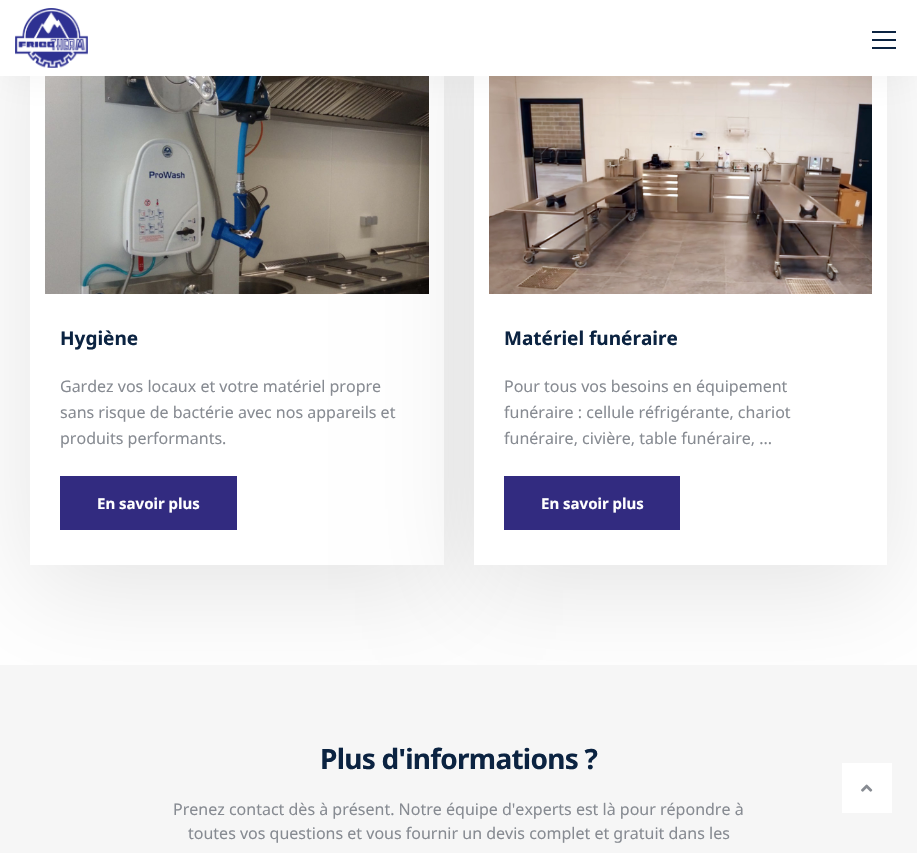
void draw(SkCanvas* canvas) {
  SkPaint paint;
  paint.setAntiAlias(true);
  auto face = [&](const char* family, int weight, float size, bool italic = false) {
    SkFontStyle style(weight, SkFontStyle::kNormal_Width,
      italic ? SkFontStyle::kItalic_Slant : SkFontStyle::kUpright_Slant);
    SkFont result(fontMgr->matchFamilyStyle(family, style), size);
    result.setSubpixel(true);
    return result;
  };
  auto writeSpaced = [&](const char* s, float x, float y, const SkFont& font, const SkPaint& ink, float letter, float word) {
    std::vector<SkGlyphID> glyphs(font.countText(s, strlen(s), SkTextEncoding::kUTF8));
    std::vector<float> xs(glyphs.size());
    font.textToGlyphs(s, strlen(s), SkTextEncoding::kUTF8, glyphs);
    font.getXPos(glyphs, xs, x);
    float extra = 0;
    for (size_t i = 0; i < glyphs.size(); i++) {
      xs[i] += extra;
      extra += letter + word * (glyphs[i] == font.unicharToGlyph(' '));
    }
    canvas->drawTextBlob(SkTextBlob::MakeFromPosHGlyphs(glyphs, xs, y, font), 0, 0, ink);
  };
  auto paste = [&](const char* path, float x, float y, float w, float h) {
    auto image = SkImages::DeferredFromEncodedData(SkData::MakeFromFileName(path));
    canvas->drawImageRect(image, SkRect::MakeXYWH(x, y, w, h), SkSamplingOptions());
  };
  canvas->clear(0xffffffff);
  paint.setColor(0x1a000000);
  paint.setMaskFilter(SkMaskFilter::MakeBlur(kNormal_SkBlurStyle, 49));
  canvas->drawRect(SkRect::MakeXYWH(30, 17, 414, 573), paint);
  paint.setMaskFilter(nullptr);
  paint.setColor(0xffffffff);
  canvas->drawRect(SkRect::MakeXYWH(30, 76, 414, 489), paint);
  paint.setColor(0x1a000000);
  paint.setMaskFilter(SkMaskFilter::MakeBlur(kNormal_SkBlurStyle, 49));
  canvas->drawRect(SkRect::MakeXYWH(474, 17, 413, 573), paint);
  paint.setMaskFilter(nullptr);
  paste("img/2.png", 45, 76, 384, 218);
  paint.setColor(0xffffffff);
  canvas->drawRect(SkRect::MakeXYWH(474, 76, 413, 489), paint);
  paste("img/3.png", 489, 76, 383, 218);
  paint.setColor(0x0d0f0f0f);
  paint.setMaskFilter(SkMaskFilter::MakeBlur(kNormal_SkBlurStyle, 20));
  canvas->drawRect(SkRect::MakeXYWH(0, 2, 917, 76), paint);
  paint.setMaskFilter(nullptr);
  paint.setColor(0xffffffff);
  canvas->drawRect(SkRect::MakeXYWH(0, 0, 917, 76), paint);
  paste("img/1.png", 15, 8, 73, 60);
  {
    const struct { float x, y, w, h; SkColor color; } items[] = {
      {872, 47, 24, 2, 0xff0b2341},
      {872, 31, 24, 2, 0xff0b2341},
      {872, 39, 24, 2, 0xff0b2341},
      {60, 476, 177, 54, 0xff322b80},
      {504, 476, 176, 54, 0xff322b80},
      {0, 665, 917, 188, 0xfff6f6f6},
      {842, 763, 50, 50, 0xffffffff},
    };
    for (auto [x, y, w, h, color] : items) {
      paint.setColor(color);
      canvas->drawRect(SkRect::MakeXYWH(x, y, w, h), paint);
    }
  }
  paste("img/4.png", 861, 784, 12, 8);
  auto f0 = face("Noto Sans", 700, 19);
  paint.setColor(0xff0b2341);
  canvas->drawString("Hygiène", 60, 345, f0, paint);
  auto f1 = face("Noto Sans", 400, 16);
  paint.setColor(0xff878b92);
  {
    const struct { const char* s; float x, y; } items[] = {
      {"Gardez vos locaux et votre matériel propre", 60, 392},
      {"sans risque de bactérie avec nos appareils et", 60, 418},
      {"produits performants.", 60, 444},
    };
    for (auto [s, x, y] : items) {
      canvas->drawString(s, x, y, f1, paint);
    }
  }
  auto f2 = face("Noto Sans", 700, 15);
  paint.setColor(0xffffffff);
  canvas->drawString("En savoir plus", 97, 509, f2, paint);
  paint.setColor(0xff0b2341);
  canvas->drawString("Matériel funéraire", 504, 345, f0, paint);
  paint.setColor(0xff878b92);
  {
    const struct { const char* s; float x, y; } items[] = {
      {"Pour tous vos besoins en équipement", 504, 392},
      {"funéraire : cellule réfrigérante, chariot", 504, 418},
      {"funéraire, civière, table funéraire, ...", 504, 444},
    };
    for (auto [s, x, y] : items) {
      canvas->drawString(s, x, y, f1, paint);
    }
  }
  paint.setColor(0xffffffff);
  canvas->drawString("En savoir plus", 541, 509, f2, paint);
  auto f3 = face("Noto Sans", 700, 28);
  paint.setColor(0xff0b2341);
  writeSpaced("Plus d'informations ?", 320, 769, f3, paint, -0.75f, 0);
  paint.setColor(0xff878b92);
  canvas->drawString("Prenez contact dès à présent. Notre équipe d'experts est là pour répondre à", 173, 815, f1, paint);
  canvas->drawString("toutes vos questions et vous fournir un devis complet et gratuit dans les", 188, 839, f1, paint);
}
